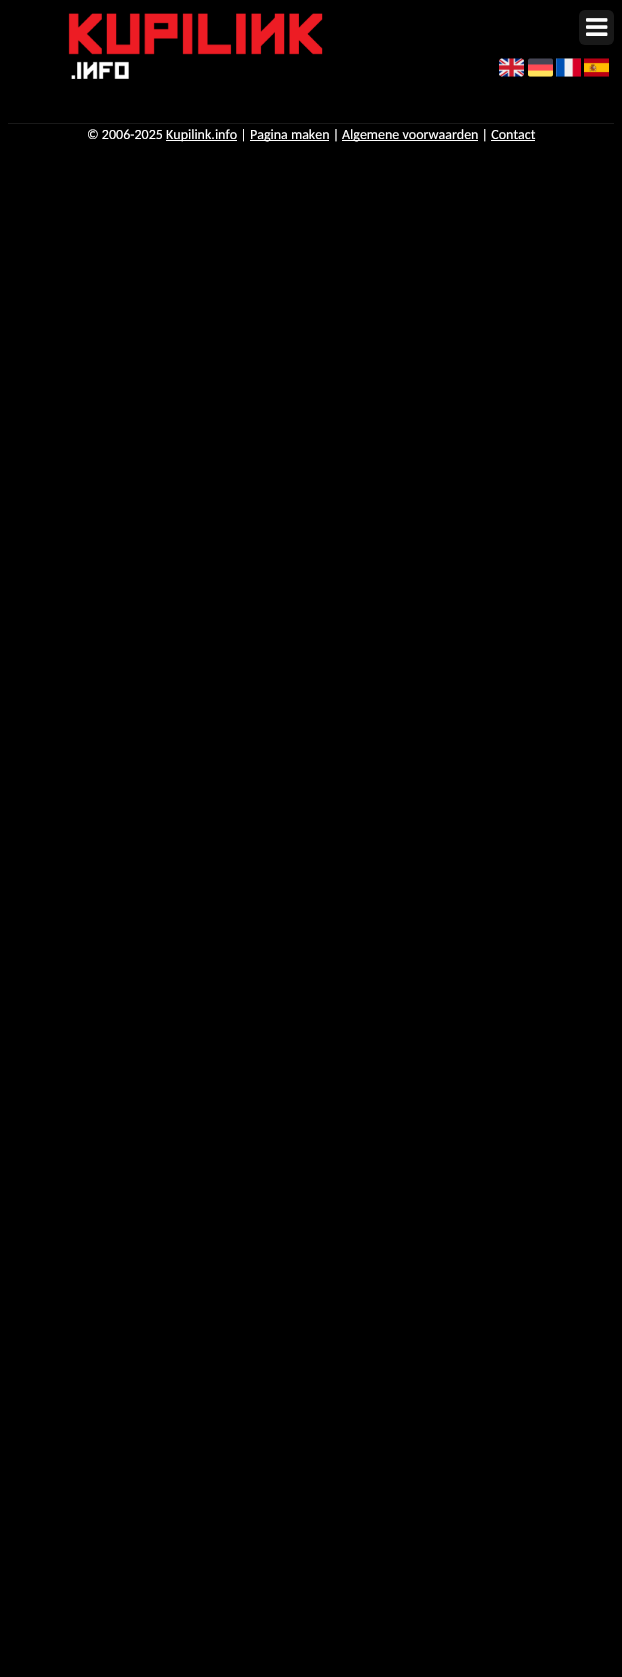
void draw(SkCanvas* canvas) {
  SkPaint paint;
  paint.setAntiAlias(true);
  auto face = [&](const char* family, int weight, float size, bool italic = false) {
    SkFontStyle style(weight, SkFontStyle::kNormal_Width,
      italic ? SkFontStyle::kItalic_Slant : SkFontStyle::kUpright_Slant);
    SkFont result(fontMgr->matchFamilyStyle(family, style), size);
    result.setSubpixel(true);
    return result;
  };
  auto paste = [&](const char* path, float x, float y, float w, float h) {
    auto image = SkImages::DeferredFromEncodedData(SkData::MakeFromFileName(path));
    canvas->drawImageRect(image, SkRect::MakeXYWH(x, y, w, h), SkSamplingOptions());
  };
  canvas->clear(0xff000000);
  paste("img/1.png", 68, 13, 255, 66);
  paint.setColor(0xff191919);
  canvas->drawRoundRect(SkRect::MakeXYWH(579, 10, 35, 35), 6, 6, paint);
  paste("img/2.png", 586, 18, 22, 18);
  paste("img/3.png", 499, 58, 25, 19);
  paste("img/4.png", 528, 58, 25, 19);
  paste("img/5.png", 556, 58, 25, 19);
  paste("img/6.png", 584, 58, 25, 19);
  {
    const struct { float x, y, w, h; SkColor color; } items[] = {
      {8, 123, 606, 1, 0xff191919},
      {166, 140, 71, 1, 0xffffffff},
      {250, 140, 79, 1, 0xffffffff},
      {342, 140, 136, 1, 0xffffffff},
      {491, 140, 44, 1, 0xffffffff},
    };
    for (auto [x, y, w, h, color] : items) {
      paint.setColor(color);
      canvas->drawRect(SkRect::MakeXYWH(x, y, w, h), paint);
    }
  }
  auto f0 = face("Carlito", 400, 14);
  {
    const struct { const char* s; float x, y; } items[] = {
      {"© 2006-2025", 87, 139},
      {"Kupilink.info |", 166, 139},
      {"Pagina maken |", 250, 139},
      {"Algemene voorwaarden | Contact", 342, 139},
    };
    for (auto [s, x, y] : items) {
      canvas->drawString(s, x, y, f0, paint);
    }
  }
}
